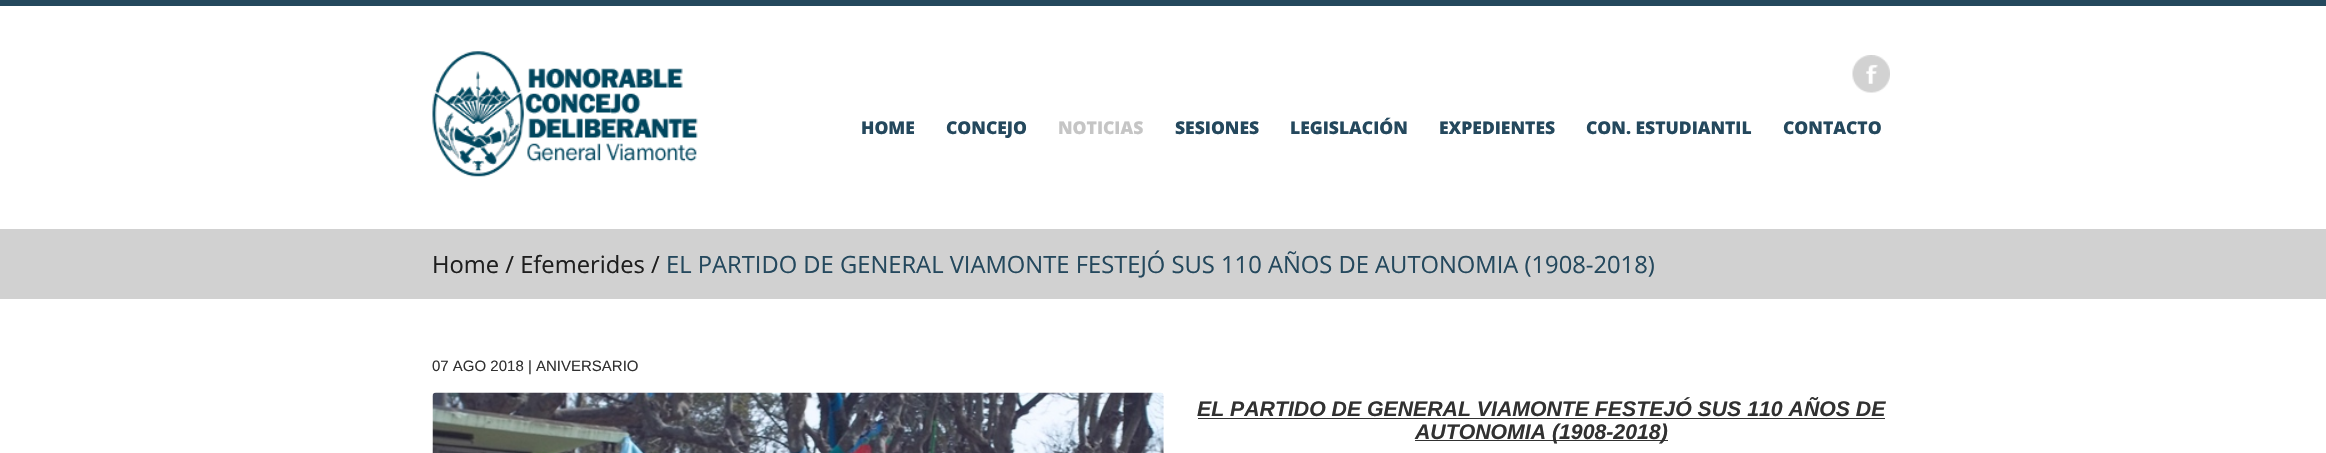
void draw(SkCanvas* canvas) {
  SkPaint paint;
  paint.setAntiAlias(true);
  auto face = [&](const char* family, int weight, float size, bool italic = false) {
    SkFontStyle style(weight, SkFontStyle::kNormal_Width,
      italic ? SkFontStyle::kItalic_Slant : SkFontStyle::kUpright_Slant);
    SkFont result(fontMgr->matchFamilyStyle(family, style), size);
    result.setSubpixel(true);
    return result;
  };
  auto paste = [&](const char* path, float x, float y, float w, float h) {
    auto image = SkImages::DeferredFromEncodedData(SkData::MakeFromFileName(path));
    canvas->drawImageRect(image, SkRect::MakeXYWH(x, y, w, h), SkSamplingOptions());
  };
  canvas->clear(0xffffffff);
  paint.setColor(0xff24485d);
  canvas->drawRect(SkRect::MakeXYWH(0, 0, 2326, 6), paint);
  paste("img/1.png", 432, 51, 266, 126);
  paste("img/2.png", 1852, 55, 38, 38);
  paint.setColor(0xffd1d1d1);
  canvas->drawRect(SkRect::MakeXYWH(0, 229, 2326, 70), paint);
  paste("img/3.png", 432, 392, 732, 61);
  paint.setColor(0xff313131);
  canvas->drawRect(SkRect::MakeXYWH(1198, 418, 687, 1), paint);
  canvas->drawRect(SkRect::MakeXYWH(1415, 440, 253, 1), paint);
  auto f0 = face("Open Sans", 800, 17.5f);
  paint.setColor(0xff24485d);
  canvas->drawString("HOME", 861, 134, f0, paint);
  canvas->drawString("CONCEJO", 946, 134, f0, paint);
  paint.setColor(0xffc5c5c5);
  canvas->drawString("NOTICIAS", 1058, 134, f0, paint);
  paint.setColor(0xff24485d);
  {
    const struct { const char* s; float x, y; } items[] = {
      {"SESIONES", 1175, 134},
      {"LEGISLACIÓN", 1290, 134},
      {"EXPEDIENTES", 1439, 134},
      {"CON. ESTUDIANTIL", 1586, 134},
      {"CONTACTO", 1783, 134},
    };
    for (auto [s, x, y] : items) {
      canvas->drawString(s, x, y, f0, paint);
    }
  }
  auto f1 = face("Open Sans", 400, 23.75f);
  paint.setColor(0xff1e1e1e);
  canvas->drawString("Home / Efemerides /", 432, 273, f1, paint);
  paint.setColor(0xff24485d);
  canvas->drawString("EL PARTIDO DE GENERAL VIAMONTE FESTEJÓ SUS 110 AÑOS DE AUTONOMIA (1908-2018)", 666, 273, f1, paint);
  auto f2 = face("Liberation Sans", 400, 15);
  paint.setColor(0xff313131);
  canvas->drawString("07 AGO 2018 | ANIVERSARIO", 432, 371, f2, paint);
  auto f3 = face("Liberation Sans", 700, 21.25f, true);
  canvas->drawString("EL PARTIDO DE GENERAL VIAMONTE FESTEJÓ SUS 110 AÑOS DE", 1197, 416, f3, paint);
  canvas->drawString("AUTONOMIA (1908-2018)", 1415, 439, f3, paint);
}
